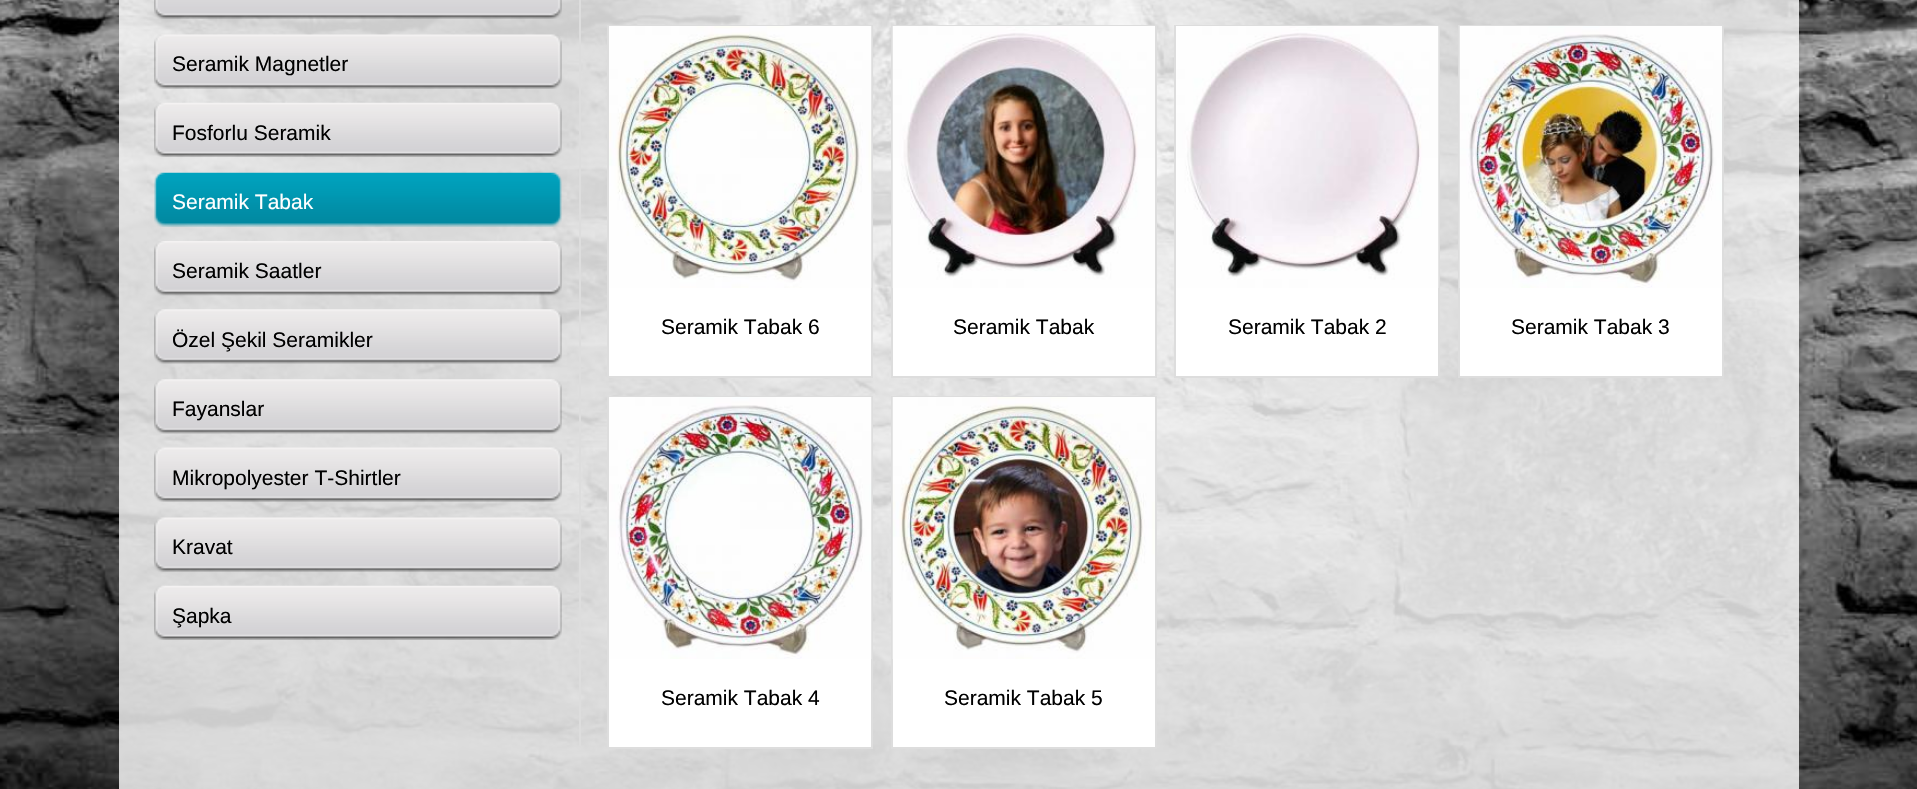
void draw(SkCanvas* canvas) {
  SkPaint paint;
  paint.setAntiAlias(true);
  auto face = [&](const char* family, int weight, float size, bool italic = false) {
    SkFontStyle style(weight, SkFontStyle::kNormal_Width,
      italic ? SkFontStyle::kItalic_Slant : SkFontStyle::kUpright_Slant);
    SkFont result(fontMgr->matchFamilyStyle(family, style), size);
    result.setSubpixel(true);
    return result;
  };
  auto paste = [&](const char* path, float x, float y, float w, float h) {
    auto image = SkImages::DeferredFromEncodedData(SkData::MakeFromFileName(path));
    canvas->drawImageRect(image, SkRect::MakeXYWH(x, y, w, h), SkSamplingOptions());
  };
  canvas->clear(0xffffffff);
  paste("img/1.png", 0, 0, 1917, 789);
  paint.setColor(0xccffffff);
  canvas->drawRect(SkRect::MakeXYWH(119, 0, 1680, 789), paint);
  paste("img/2.png", 154, 0, 408, 19);
  paste("img/3.png", 154, 34, 408, 55);
  paste("img/4.png", 154, 102, 408, 55);
  paste("img/5.png", 154, 172, 408, 55);
  paste("img/6.png", 154, 241, 408, 55);
  paste("img/7.png", 154, 309, 408, 55);
  paste("img/8.png", 154, 379, 408, 55);
  paste("img/9.png", 154, 447, 408, 55);
  paste("img/10.png", 154, 517, 408, 55);
  paste("img/11.png", 154, 585, 408, 55);
  paint.setColor(0xffdddddd);
  canvas->drawRect(SkRect::MakeXYWH(579, 0, 2, 746), paint);
  paint.setColor(0xffffffff);
  canvas->drawRect(SkRect::MakeXYWH(609, 288, 262, 88), paint);
  paint.setStroke(true);
  paint.setStrokeWidth(2);
  paint.setColor(0xffdddddd);
  canvas->drawRect(SkRect::MakeXYWH(608, 26, 264, 351), paint);
  paste("img/12.png", 609, 26, 263, 262);
  paint.setStroke(false);
  paint.setColor(0xffffffff);
  canvas->drawRect(SkRect::MakeXYWH(893, 288, 262, 88), paint);
  paint.setStroke(true);
  paint.setColor(0xffdddddd);
  canvas->drawRect(SkRect::MakeXYWH(892, 26, 264, 351), paint);
  paste("img/13.png", 892, 26, 263, 262);
  paint.setStroke(false);
  paint.setColor(0xffffffff);
  canvas->drawRect(SkRect::MakeXYWH(1176, 288, 262, 88), paint);
  paint.setStroke(true);
  paint.setColor(0xffdddddd);
  canvas->drawRect(SkRect::MakeXYWH(1175, 26, 264, 351), paint);
  paste("img/14.png", 1176, 26, 263, 262);
  paint.setStroke(false);
  paint.setColor(0xffffffff);
  canvas->drawRect(SkRect::MakeXYWH(1460, 288, 262, 88), paint);
  paint.setStroke(true);
  paint.setColor(0xffdddddd);
  canvas->drawRect(SkRect::MakeXYWH(1459, 26, 264, 351), paint);
  paste("img/15.png", 1459, 26, 263, 262);
  paint.setStroke(false);
  paint.setColor(0xffffffff);
  canvas->drawRect(SkRect::MakeXYWH(609, 659, 262, 88), paint);
  paint.setStroke(true);
  paint.setColor(0xffdddddd);
  canvas->drawRect(SkRect::MakeXYWH(608, 397, 264, 351), paint);
  paste("img/16.png", 609, 397, 263, 262);
  paint.setStroke(false);
  paint.setColor(0xffffffff);
  canvas->drawRect(SkRect::MakeXYWH(893, 659, 262, 88), paint);
  paint.setStroke(true);
  paint.setColor(0xffdddddd);
  canvas->drawRect(SkRect::MakeXYWH(892, 397, 264, 351), paint);
  paste("img/17.png", 892, 397, 263, 262);
  auto f0 = face("Liberation Sans", 400, 21);
  paint.setStroke(false);
  paint.setColor(0xff000000);
  canvas->drawString("Seramik Magnetler", 172, 71, f0, paint);
  canvas->drawString("Fosforlu Seramik", 172, 140, f0, paint);
  paint.setColor(0xffffffff);
  canvas->drawString("Seramik Tabak", 172, 209, f0, paint);
  paint.setColor(0xff000000);
  {
    const struct { const char* s; float x, y; } items[] = {
      {"Seramik Saatler", 172, 278},
      {"Özel Şekil Seramikler", 172, 347},
      {"Fayanslar", 172, 416},
      {"Mikropolyester T-Shirtler", 172, 485},
      {"Kravat", 172, 554},
      {"Şapka", 172, 623},
      {"Seramik Tabak 6", 661, 334},
      {"Seramik Tabak", 953, 334},
      {"Seramik Tabak 2", 1228, 334},
      {"Seramik Tabak 3", 1511, 334},
      {"Seramik Tabak 4", 661, 705},
      {"Seramik Tabak 5", 944, 705},
    };
    for (auto [s, x, y] : items) {
      canvas->drawString(s, x, y, f0, paint);
    }
  }
}
